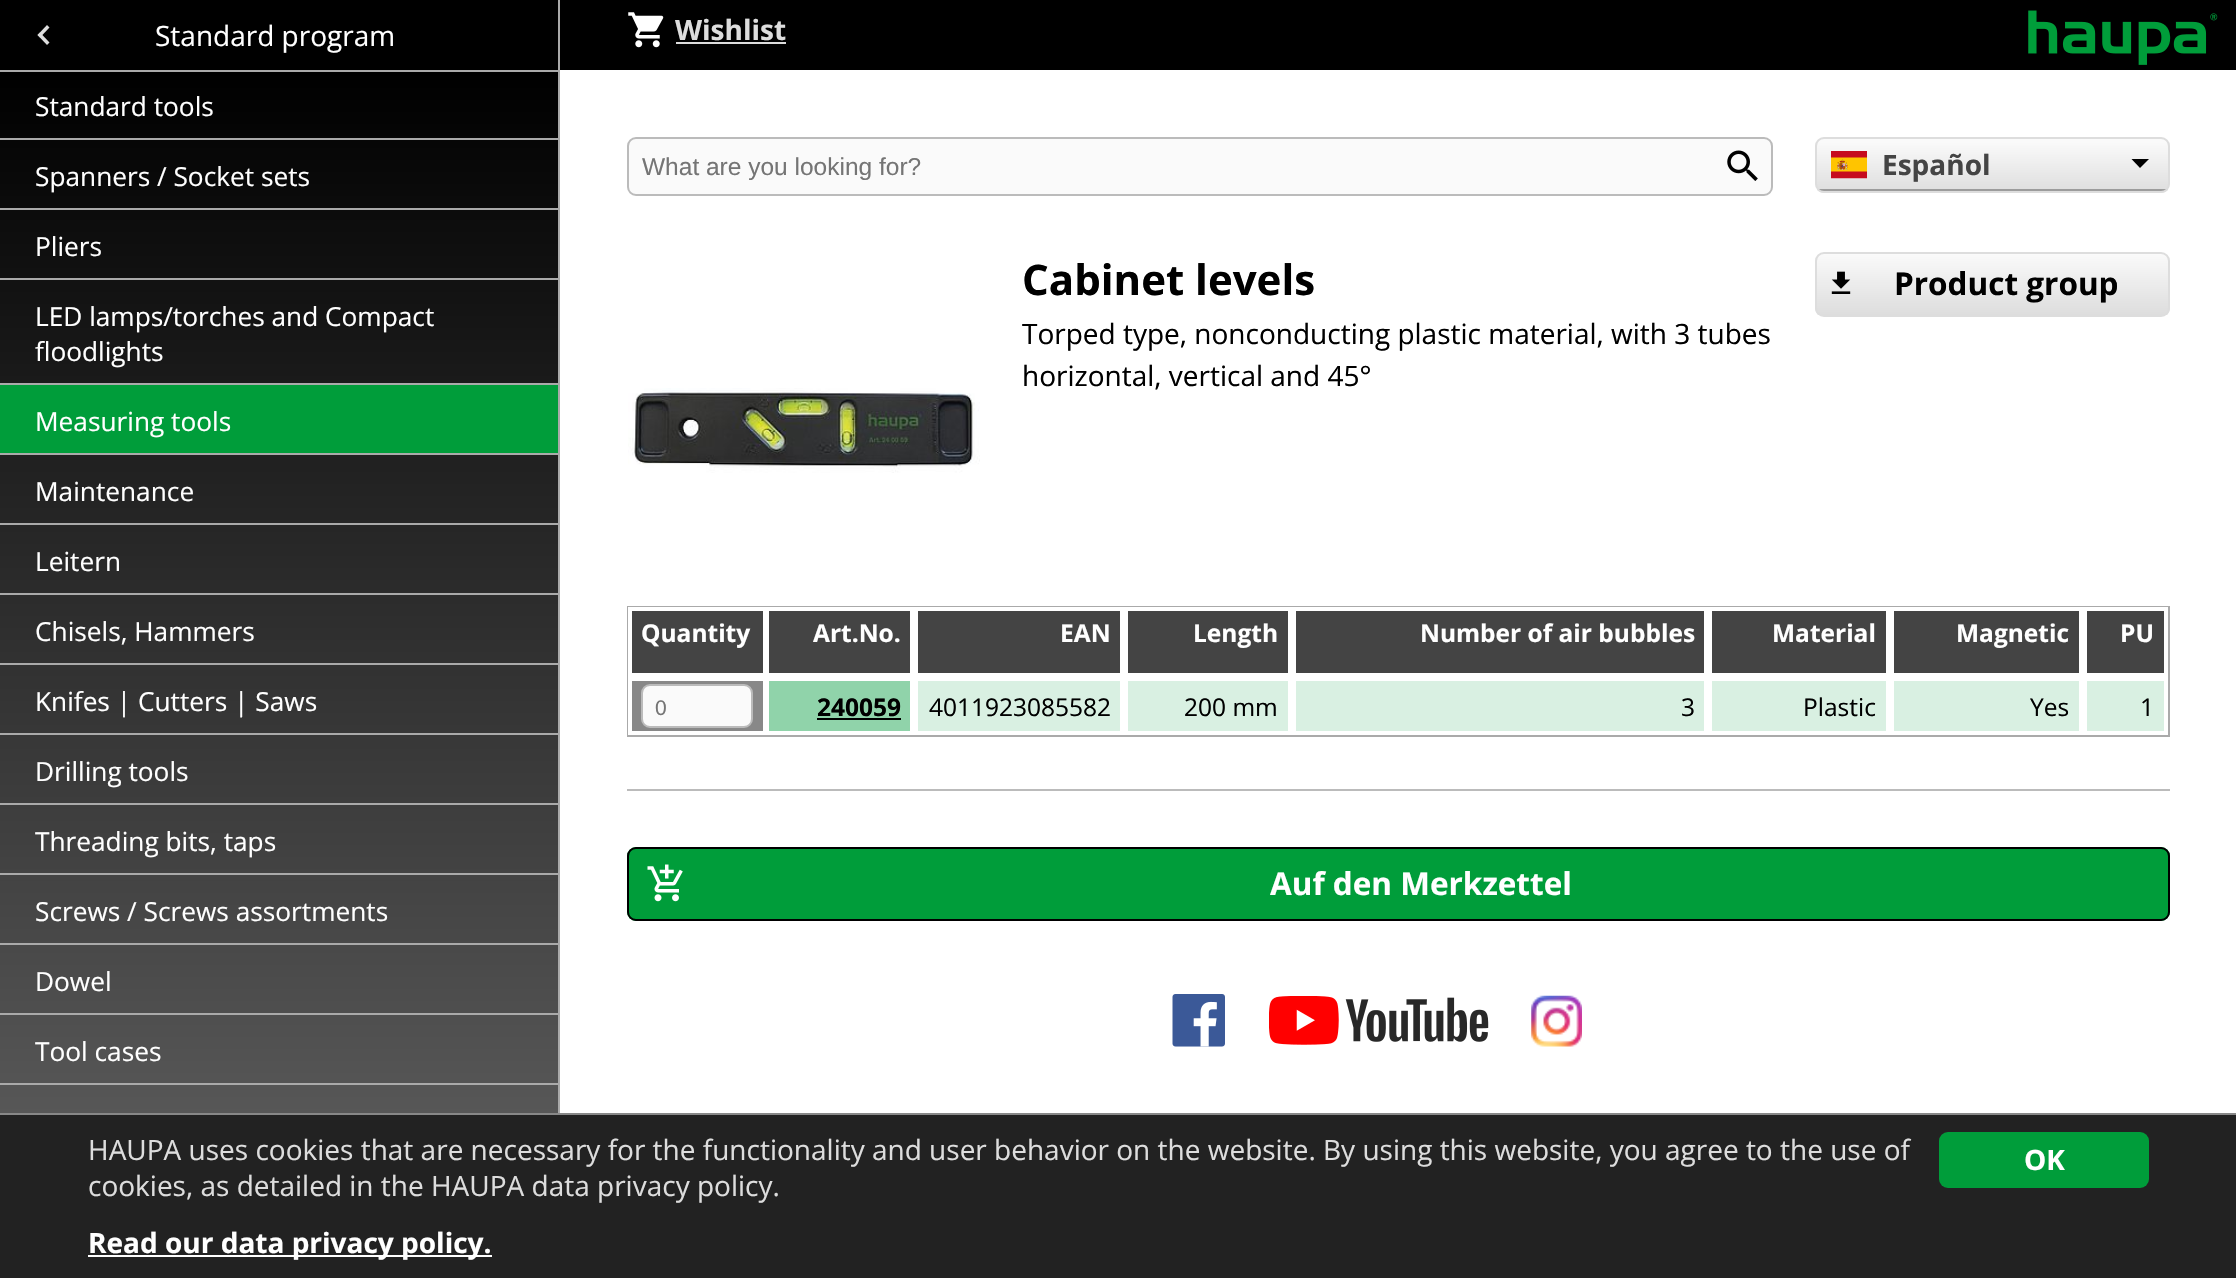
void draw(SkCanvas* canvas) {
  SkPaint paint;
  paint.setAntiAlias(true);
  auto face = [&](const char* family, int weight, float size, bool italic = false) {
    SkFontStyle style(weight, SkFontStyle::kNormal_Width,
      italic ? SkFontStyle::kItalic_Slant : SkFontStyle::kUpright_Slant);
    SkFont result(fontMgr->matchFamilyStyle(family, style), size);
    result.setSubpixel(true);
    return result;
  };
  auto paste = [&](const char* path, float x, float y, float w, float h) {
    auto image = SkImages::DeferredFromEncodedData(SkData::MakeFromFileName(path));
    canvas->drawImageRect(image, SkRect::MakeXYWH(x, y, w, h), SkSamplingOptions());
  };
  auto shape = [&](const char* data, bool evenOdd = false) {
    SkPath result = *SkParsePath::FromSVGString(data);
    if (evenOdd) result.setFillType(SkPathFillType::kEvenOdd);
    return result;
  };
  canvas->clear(0xffffffff);
  {
    const struct { float x, y, w, h; SkColor color; } items[] = {
      {0, 0, 558, 70, 0xff000000},
      {558, 0, 2, 1113, 0xffaaaaaa},
      {0, 70, 558, 2, 0xffaaaaaa},
    };
    for (auto [x, y, w, h, color] : items) {
      paint.setColor(color);
      canvas->drawRect(SkRect::MakeXYWH(x, y, w, h), paint);
    }
  }
  paint.setColor(0xffdddddd);
  canvas->drawPath(shape("M37.5 35L47 25L49.5 27.5L40 37.5Z"), paint);
  canvas->drawPath(shape("M37.5 35L40 32.5L49.5 42.5L47 45Z"), paint);
  {
    const SkColor colors[] = {0xff000000, 0xff666666};
    const float stops[] = {0, 1};
    const SkPoint ends[] = {{279, 70}, {279, 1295}};
    paint.setShader(SkGradientShader::MakeLinear(ends, colors, stops, 2, SkTileMode::kClamp));
    paint.setAlpha(255);
  }
  canvas->drawRect(SkRect::MakeXYWH(0, 72, 558, 1041), paint);
  paint.setShader(nullptr);
  {
    const struct { float x, y, w, h; SkColor color; } items[] = {
      {0, 138, 558, 2, 0xffaaaaaa},
      {0, 208, 558, 2, 0xffaaaaaa},
      {0, 278, 558, 2, 0xffaaaaaa},
      {0, 383, 558, 2, 0xffaaaaaa},
      {0, 385, 558, 68, 0xff009d3a},
      {0, 453, 558, 2, 0xffaaaaaa},
      {0, 523, 558, 2, 0xffaaaaaa},
      {0, 593, 558, 2, 0xffaaaaaa},
      {0, 663, 558, 2, 0xffaaaaaa},
      {0, 733, 558, 2, 0xffaaaaaa},
      {0, 803, 558, 2, 0xffaaaaaa},
      {0, 873, 558, 2, 0xffaaaaaa},
      {0, 943, 558, 2, 0xffaaaaaa},
      {0, 1013, 558, 2, 0xffaaaaaa},
      {0, 1083, 558, 2, 0xffaaaaaa},
      {560, 0, 1676, 70, 0xff000000},
    };
    for (auto [x, y, w, h, color] : items) {
      paint.setColor(color);
      canvas->drawRect(SkRect::MakeXYWH(x, y, w, h), paint);
    }
  }
  paste("img/1.png", 628, 12, 36, 36);
  paint.setColor(0xffdddddd);
  canvas->drawRect(SkRect::MakeXYWH(676, 42, 110, 2), paint);
  paste("img/2.png", 2028, 10, 190, 55);
  paint.setColor(0xfffafafa);
  canvas->drawRoundRect(SkRect::MakeXYWH(628, 138, 1144, 57), 8, 8, paint);
  paint.setStroke(true);
  paint.setStrokeWidth(2);
  paint.setColor(0xffbbbbbb);
  canvas->drawRoundRect(SkRect::MakeXYWH(628, 138, 1144, 57), 8, 8, paint);
  paste("img/3.png", 1727, 150, 31, 31);
  paint.setStroke(false);
  paint.setColor(0xfffafafa);
  canvas->drawRoundRect(SkRect::MakeXYWH(1815, 137, 355, 56), 9, 9, paint);
  canvas->save();
  canvas->clipPath(shape("M1824 137H2161C2166 137 2170 141 2170 146V184C2170 189 2166 193 2161 193H1824C1819 193 1815 189 1815 184V146C1815 141 1819 137 1824 137Z"), true);
  {
    const SkColor colors[] = {0xfffafafa, 0xffdddddd};
    const float stops[] = {0, 1};
    const SkPoint ends[] = {{1992, 142}, {1992, 194}};
    paint.setShader(SkGradientShader::MakeLinear(ends, colors, stops, 2, SkTileMode::kClamp));
    paint.setAlpha(255);
  }
  canvas->drawRect(SkRect::MakeXYWH(1817, 142, 351, 51), paint);
  canvas->restore();
  paint.setShader(nullptr);
  paint.setColor(0xff000000);
  canvas->drawPath(shape("M2131.5 159L2140 168L2149 159Z"), paint);
  paint.setStroke(true);
  paint.setColor(0xffdddddd);
  canvas->drawRoundRect(SkRect::MakeXYWH(1816, 138, 353, 54), 8, 8, paint);
  canvas->save();
  canvas->clipPath(shape("M1824 138H2161C2165 138 2168 141 2168 145V184C2168 188 2165 191 2161 191H1824C1820 191 1817 188 1817 184V145C1817 141 1820 138 1824 138Z"), true);
  paint.setStroke(false);
  paint.setColor(0xff9c9c9c);
  canvas->drawRect(SkRect::MakeXYWH(1817, 189, 351, 2), paint);
  canvas->restore();
  paste("img/4.png", 1831, 151, 36, 28);
  paint.setColor(0xffbbbbbb);
  canvas->drawRect(SkRect::MakeXYWH(627, 789, 1543, 2), paint);
  canvas->save();
  canvas->clipPath(shape("M1824 252H2161C2166 252 2170 256 2170 261V308C2170 313 2166 317 2161 317H1824C1819 317 1815 313 1815 308V261C1815 256 1819 252 1824 252Z"), true);
  {
    const SkColor colors[] = {0xfffafafa, 0xffdddddd};
    const float stops[] = {0, 1};
    const SkPoint ends[] = {{1992, 254}, {1992, 315}};
    paint.setShader(SkGradientShader::MakeLinear(ends, colors, stops, 2, SkTileMode::kClamp));
    paint.setAlpha(255);
  }
  canvas->drawRect(SkRect::MakeXYWH(1815, 254, 355, 61), paint);
  canvas->restore();
  paste("img/5.png", 1831, 271, 20, 23);
  paint.setStroke(true);
  paint.setShader(nullptr);
  paint.setColor(0xffdddddd);
  canvas->drawRoundRect(SkRect::MakeXYWH(1816, 253, 353, 63), 8, 8, paint);
  paste("img/6.png", 628, 388, 352, 85);
  paint.setColor(0xffaaaaaa);
  canvas->drawRect(SkRect::MakeXYWH(628, 607, 1541, 129), paint);
  paint.setStroke(false);
  paint.setColor(0xff444444);
  canvas->drawRect(SkRect::MakeXYWH(767, 609, 145, 66), paint);
  paint.setStroke(true);
  paint.setStrokeWidth(4);
  paint.setColor(0xffffffff);
  canvas->drawRect(SkRect::MakeXYWH(767, 609, 145, 66), paint);
  paint.setStroke(false);
  paint.setColor(0xff444444);
  canvas->drawRect(SkRect::MakeXYWH(630, 609, 135, 66), paint);
  paint.setStroke(true);
  paint.setColor(0xffffffff);
  canvas->drawRect(SkRect::MakeXYWH(630, 609, 135, 66), paint);
  paint.setStroke(false);
  paint.setColor(0xff888888);
  canvas->drawRect(SkRect::MakeXYWH(630, 679, 135, 54), paint);
  paint.setStroke(true);
  paint.setColor(0xffffffff);
  canvas->drawRect(SkRect::MakeXYWH(630, 679, 135, 54), paint);
  paint.setStroke(false);
  paint.setColor(0xfffafafa);
  canvas->drawRoundRect(SkRect::MakeXYWH(642, 685, 110, 42), 8, 8, paint);
  paint.setStroke(true);
  paint.setStrokeWidth(2);
  paint.setColor(0xffbbbbbb);
  canvas->drawRoundRect(SkRect::MakeXYWH(642, 685, 110, 42), 8, 8, paint);
  paint.setStroke(false);
  paint.setColor(0xff444444);
  canvas->drawRect(SkRect::MakeXYWH(916, 609, 206, 66), paint);
  paint.setStroke(true);
  paint.setStrokeWidth(4);
  paint.setColor(0xffffffff);
  canvas->drawRect(SkRect::MakeXYWH(916, 609, 206, 66), paint);
  paint.setStroke(false);
  paint.setColor(0xff444444);
  canvas->drawRect(SkRect::MakeXYWH(1126, 609, 164, 66), paint);
  paint.setStroke(true);
  paint.setColor(0xffffffff);
  canvas->drawRect(SkRect::MakeXYWH(1126, 609, 164, 66), paint);
  paint.setStroke(false);
  paint.setColor(0xff444444);
  canvas->drawRect(SkRect::MakeXYWH(1294, 609, 412, 66), paint);
  paint.setStroke(true);
  paint.setColor(0xffffffff);
  canvas->drawRect(SkRect::MakeXYWH(1294, 609, 412, 66), paint);
  paint.setStroke(false);
  paint.setColor(0xff444444);
  canvas->drawRect(SkRect::MakeXYWH(1710, 609, 178, 66), paint);
  paint.setStroke(true);
  paint.setColor(0xffffffff);
  canvas->drawRect(SkRect::MakeXYWH(1710, 609, 178, 66), paint);
  paint.setStroke(false);
  paint.setColor(0xff444444);
  canvas->drawRect(SkRect::MakeXYWH(1892, 609, 189, 66), paint);
  paint.setStroke(true);
  paint.setColor(0xffffffff);
  canvas->drawRect(SkRect::MakeXYWH(1892, 609, 189, 66), paint);
  paint.setStroke(false);
  paint.setColor(0xff444444);
  canvas->drawRect(SkRect::MakeXYWH(2085, 609, 81, 66), paint);
  paint.setStroke(true);
  paint.setColor(0xffffffff);
  canvas->drawRect(SkRect::MakeXYWH(2085, 609, 81, 66), paint);
  paint.setStroke(false);
  {
    const struct { float x, y, w, h; SkColor color; } items[] = {
      {918, 681, 1246, 50, 0xffd9f0e2},
      {769, 681, 141, 50, 0xff90d3aa},
      {817, 718, 84, 2, 0xff000000},
    };
    for (auto [x, y, w, h, color] : items) {
      paint.setColor(color);
      canvas->drawRect(SkRect::MakeXYWH(x, y, w, h), paint);
    }
  }
  paint.setStroke(true);
  paint.setColor(0xffffffff);
  canvas->drawRect(SkRect::MakeXYWH(916, 679, 206, 54), paint);
  canvas->drawRect(SkRect::MakeXYWH(1126, 679, 164, 54), paint);
  canvas->drawRect(SkRect::MakeXYWH(1294, 679, 412, 54), paint);
  canvas->drawRect(SkRect::MakeXYWH(1710, 679, 178, 54), paint);
  canvas->drawRect(SkRect::MakeXYWH(1892, 679, 189, 54), paint);
  canvas->drawRect(SkRect::MakeXYWH(2085, 679, 81, 54), paint);
  paint.setStroke(false);
  paint.setColor(0xff009d3a);
  canvas->drawRoundRect(SkRect::MakeXYWH(627, 847, 1543, 74), 9, 9, paint);
  paste("img/7.png", 647, 864, 36, 38);
  paint.setStroke(true);
  paint.setStrokeWidth(2);
  paint.setColor(0xff000000);
  canvas->drawRoundRect(SkRect::MakeXYWH(628, 848, 1541, 72), 8, 8, paint);
  paste("img/8.png", 1172, 994, 53, 53);
  paste("img/9.png", 1269, 996, 220, 49);
  paste("img/10.png", 1531, 995, 51, 52);
  paint.setStroke(false);
  {
    const struct { float x, y, w, h; SkColor color; } items[] = {
      {0, 1115, 2236, 163, 0xff222222},
      {0, 1113, 2236, 2, 0xff888888},
      {88, 1255, 404, 2, 0xffffffff},
    };
    for (auto [x, y, w, h, color] : items) {
      paint.setColor(color);
      canvas->drawRect(SkRect::MakeXYWH(x, y, w, h), paint);
    }
  }
  paint.setColor(0xff009d3a);
  canvas->drawRoundRect(SkRect::MakeXYWH(1939, 1132, 210, 56), 9, 9, paint);
  auto f0 = face("Open Sans", 400, 28);
  paint.setColor(0xffffffff);
  canvas->drawString("Standard program", 155, 46, f0, paint);
  auto f1 = face("Open Sans", 400, 26.25f);
  {
    const struct { const char* s; float x, y; } items[] = {
      {"Standard tools", 35, 116},
      {"Spanners / Socket sets", 35, 186},
      {"Pliers", 35, 256},
      {"LED lamps/torches and Compact", 35, 326},
      {"floodlights", 35, 361},
      {"Measuring tools", 35, 431},
      {"Maintenance", 35, 501},
      {"Leitern", 35, 571},
      {"Chisels, Hammers", 35, 641},
      {"Knifes | Cutters | Saws", 35, 711},
      {"Drilling tools", 35, 781},
      {"Threading bits, taps", 35, 851},
      {"Screws / Screws assortments", 35, 921},
      {"Dowel", 35, 991},
      {"Tool cases", 35, 1061},
    };
    for (auto [s, x, y] : items) {
      canvas->drawString(s, x, y, f1, paint);
    }
  }
  auto f2 = face("Open Sans", 700, 28);
  paint.setColor(0xffdddddd);
  canvas->drawString("Wishlist", 675, 40, f2, paint);
  auto f3 = face("Liberation Sans", 400, 24.5f);
  paint.setColor(0xff757575);
  canvas->drawString("What are you looking for?", 642, 175, f3, paint);
  paint.setColor(0xff444444);
  canvas->drawString("Español", 1882, 175, f2, paint);
  auto f4 = face("Open Sans", 700, 42);
  paint.setColor(0xff000000);
  canvas->drawString("Cabinet levels", 1022, 295, f4, paint);
  canvas->drawString("Torped type, nonconducting plastic material, with 3 tubes", 1022, 344, f0, paint);
  canvas->drawString("horizontal, vertical and 45°", 1022, 386, f0, paint);
  auto f5 = face("Open Sans", 700, 31.5f);
  canvas->drawString("Product group", 1894, 295, f5, paint);
  auto f6 = face("Open Sans", 700, 24.5f);
  paint.setColor(0xffffffff);
  canvas->drawString("Quantity", 641, 642, f6, paint);
  auto f7 = face("Liberation Sans", 400, 21);
  paint.setColor(0xff757575);
  canvas->drawString("0", 655, 715, f7, paint);
  paint.setColor(0xffffffff);
  {
    const struct { const char* s; float x, y; } items[] = {
      {"Art.No.", 813, 642},
      {"EAN", 1060, 642},
      {"Length", 1193, 642},
      {"Number of air bubbles", 1420, 642},
      {"Material", 1772, 642},
      {"Magnetic", 1956, 642},
      {"PU", 2120, 642},
    };
    for (auto [s, x, y] : items) {
      canvas->drawString(s, x, y, f6, paint);
    }
  }
  paint.setColor(0xff000000);
  canvas->drawString("240059", 817, 716, f6, paint);
  auto f8 = face("Open Sans", 400, 24.5f);
  {
    const struct { const char* s; float x, y; } items[] = {
      {"4011923085582", 929, 716},
      {"200 mm", 1184, 716},
      {"3", 1681, 716},
      {"Plastic", 1803, 716},
      {"Yes", 2030, 716},
      {"1", 2140, 716},
    };
    for (auto [s, x, y] : items) {
      canvas->drawString(s, x, y, f8, paint);
    }
  }
  paint.setColor(0xffffffff);
  canvas->drawString("Auf den Merkzettel", 1270, 895, f5, paint);
  paint.setColor(0xffdddddd);
  canvas->drawString("HAUPA uses cookies that are necessary for the functionality and user behavior on the website. By using this website, you agree to the use of", 88, 1160, f0, paint);
  canvas->drawString("cookies, as detailed in the HAUPA data privacy policy.", 88, 1196, f0, paint);
  paint.setColor(0xffffffff);
  canvas->drawString("Read our data privacy policy.", 88, 1253, f2, paint);
  canvas->drawString("OK", 2024, 1170, f2, paint);
}
